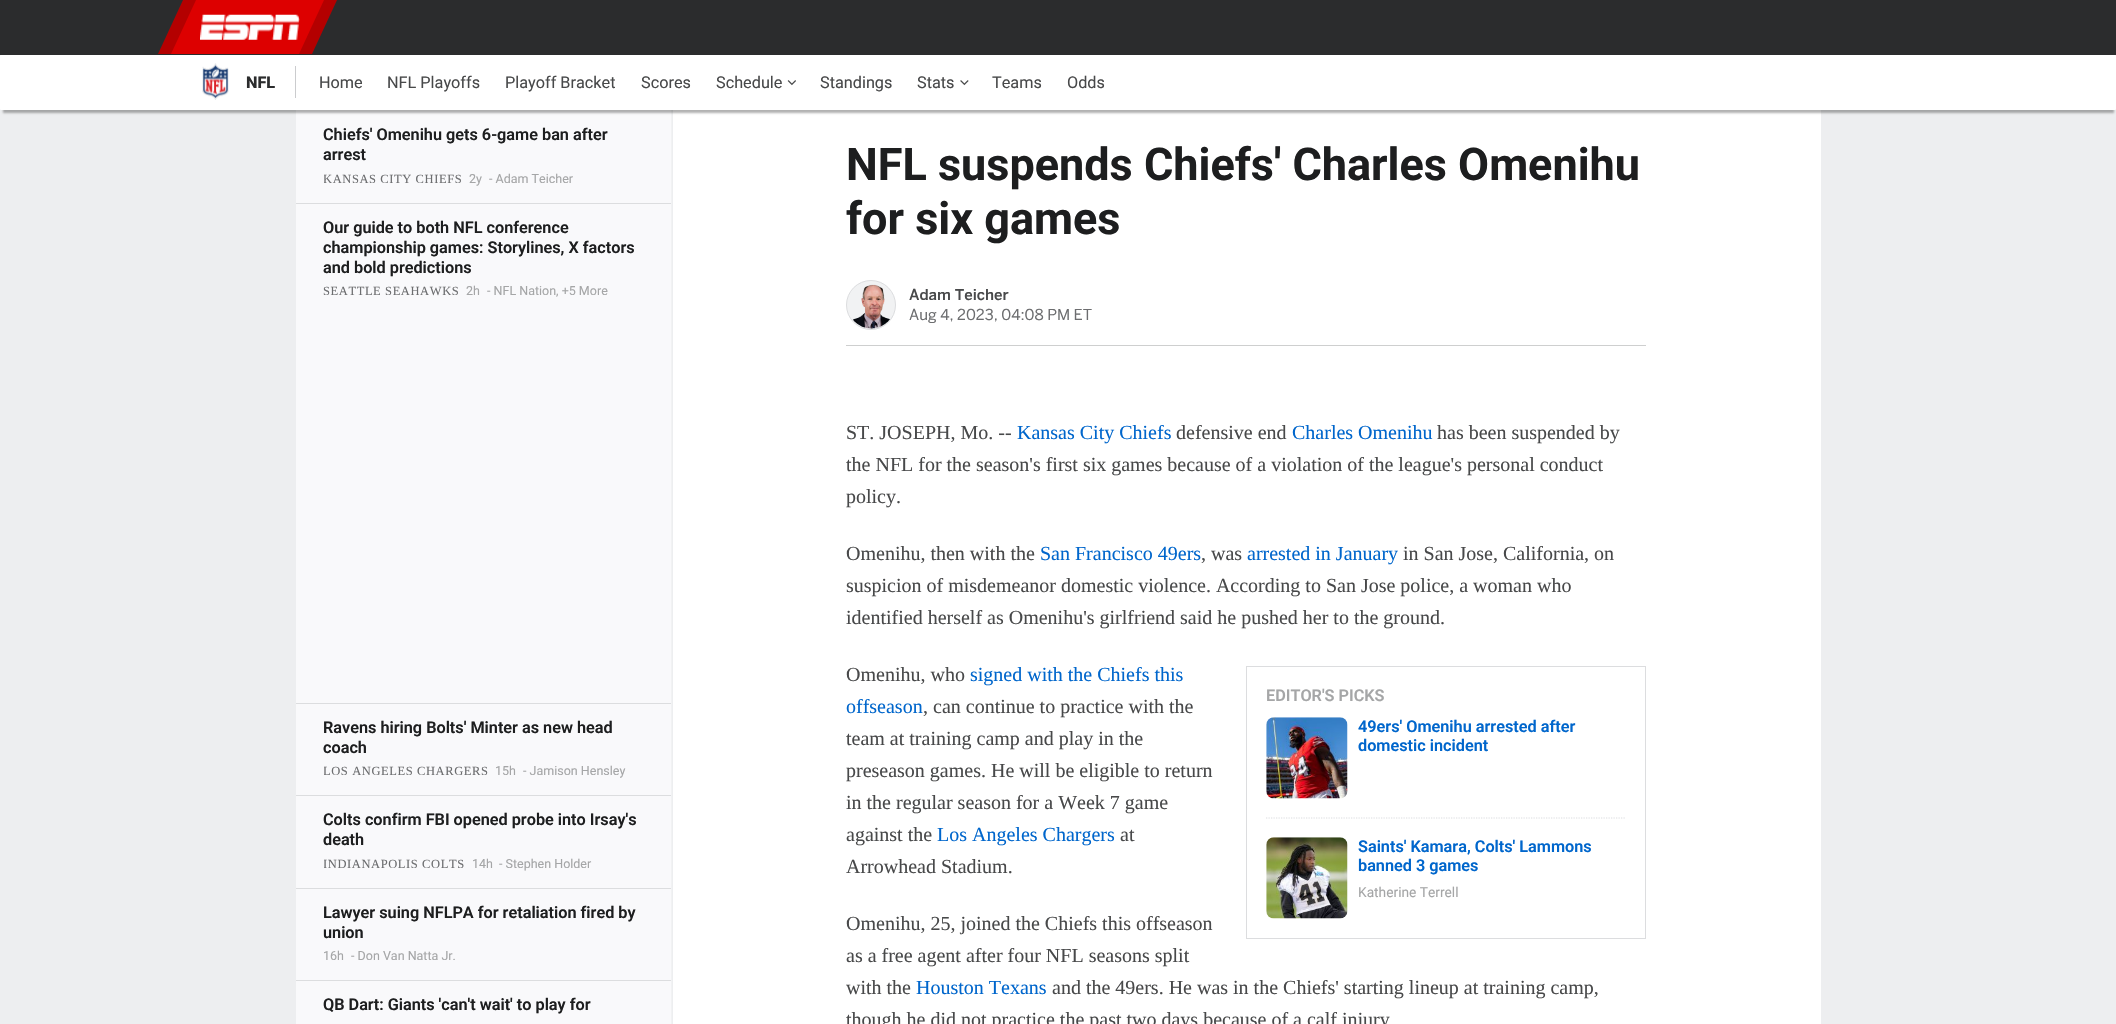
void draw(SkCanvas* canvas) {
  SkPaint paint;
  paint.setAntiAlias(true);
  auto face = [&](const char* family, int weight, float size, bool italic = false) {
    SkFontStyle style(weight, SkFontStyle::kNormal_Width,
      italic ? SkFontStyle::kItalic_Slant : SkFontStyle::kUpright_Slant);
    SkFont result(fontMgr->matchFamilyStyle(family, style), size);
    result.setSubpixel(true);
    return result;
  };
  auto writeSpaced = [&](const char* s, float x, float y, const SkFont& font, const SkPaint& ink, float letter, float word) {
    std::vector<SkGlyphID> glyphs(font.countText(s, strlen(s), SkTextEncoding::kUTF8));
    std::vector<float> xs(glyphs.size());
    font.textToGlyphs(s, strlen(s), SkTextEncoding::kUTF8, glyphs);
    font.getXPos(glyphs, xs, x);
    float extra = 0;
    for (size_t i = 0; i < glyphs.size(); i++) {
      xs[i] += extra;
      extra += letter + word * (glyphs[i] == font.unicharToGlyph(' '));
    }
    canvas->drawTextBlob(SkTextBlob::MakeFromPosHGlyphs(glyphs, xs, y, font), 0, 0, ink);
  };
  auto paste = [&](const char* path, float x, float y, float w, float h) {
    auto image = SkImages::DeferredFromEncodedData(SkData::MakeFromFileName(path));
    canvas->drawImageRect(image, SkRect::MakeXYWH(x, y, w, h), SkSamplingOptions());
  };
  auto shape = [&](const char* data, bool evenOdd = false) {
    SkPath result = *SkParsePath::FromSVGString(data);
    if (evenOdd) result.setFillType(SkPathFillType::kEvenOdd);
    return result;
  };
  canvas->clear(0xffedeef0);
  paint.setColor(0xff2b2c2d);
  canvas->drawRect(SkRect::MakeXYWH(0, 0, 2116, 55), paint);
  paint.setColor(0xffb40000);
  canvas->drawPath(shape("M183 0H337L312 54H158Z"), paint);
  paint.setColor(0xffdd0000);
  canvas->drawPath(shape("M196 0H324L299 54H171Z"), paint);
  paste("img/1.png", 200, 14, 100, 26);
  {
    const struct { float x, y, w, h; SkColor color; } items[] = {
      {296, 110, 375, 914, 0xfff9f9fb},
      {671, 106, 1, 918, 0xfff1f2f3},
      {673, 110, 1148, 914, 0xffffffff},
    };
    for (auto [x, y, w, h, color] : items) {
      paint.setColor(color);
      canvas->drawRect(SkRect::MakeXYWH(x, y, w, h), paint);
    }
  }
  paint.setColor(0x4d000000);
  paint.setMaskFilter(SkMaskFilter::MakeBlur(kNormal_SkBlurStyle, 1));
  canvas->drawRect(SkRect::MakeXYWH(3, 63, 2111, 50), paint);
  paint.setMaskFilter(nullptr);
  paint.setColor(0xffffffff);
  canvas->drawRoundRect(SkRect::MakeXYWH(0, 55, 2116, 55), 1, 1, paint);
  paste("img/2.png", 202, 63, 27, 37);
  paint.setColor(0xffcbccce);
  canvas->drawRect(SkRect::MakeXYWH(295, 66, 1, 32), paint);
  paste("img/3.png", 787, 80, 9, 6);
  paste("img/4.png", 960, 80, 9, 6);
  {
    const struct { float x, y, w, h; SkColor color; } items[] = {
      {296, 203, 375, 1, 0xffdcdddf},
      {296, 703, 375, 1, 0xffdcdddf},
      {296, 795, 375, 1, 0xffdcdddf},
      {296, 888, 375, 1, 0xffdcdddf},
      {296, 980, 375, 1, 0xffdcdddf},
      {846, 345, 800, 1, 0xffcecfcf},
    };
    for (auto [x, y, w, h, color] : items) {
      paint.setColor(color);
      canvas->drawRect(SkRect::MakeXYWH(x, y, w, h), paint);
    }
  }
  paint.setColor(0xfff1f2f3);
  canvas->drawCircle(871, 305, 24.5f, paint);
  paint.setStroke(true);
  paint.setStrokeWidth(1);
  paint.setColor(0xffdcdddf);
  canvas->drawCircle(871, 305, 24.5f, paint);
  paste("img/5.png", 852, 284, 38, 45);
  canvas->drawRect(SkRect::MakeXYWH(1246.5f, 666.5f, 399, 272), paint);
  paste("img/6.png", 1266, 717, 82, 82);
  paint.setStrokeWidth(1.2f);
  paint.setPathEffect(SkDashPathEffect::Make({{1.25f, 1.25f}}, 0));
  canvas->drawPath(shape("M1266 818H1626"), paint);
  paint.setPathEffect(nullptr);
  paste("img/7.png", 1266, 837, 82, 82);
  auto f0 = face("Roboto", 800, 16.25f);
  paint.setStroke(false);
  paint.setColor(0xff2b2c2d);
  canvas->drawString("NFL", 246, 88, f0, paint);
  auto f1 = face("Roboto", 400, 16.25f);
  paint.setColor(0xff48494a);
  {
    const struct { const char* s; float x, y; } items[] = {
      {"Home", 319, 88},
      {"NFL Playoffs", 387, 88},
      {"Playoff Bracket", 505, 88},
      {"Scores", 641, 88},
      {"Schedule", 716, 88},
      {"Standings", 820, 88},
      {"Stats", 917, 88},
      {"Teams", 992, 88},
      {"Odds", 1067, 88},
    };
    for (auto [s, x, y] : items) {
      canvas->drawString(s, x, y, f1, paint);
    }
  }
  auto f2 = face("Roboto", 600, 16.25f);
  paint.setColor(0xff1d1e1f);
  canvas->drawString("Chiefs' Omenihu gets 6-game ban after", 323, 140, f2, paint);
  canvas->drawString("arrest", 323, 160, f2, paint);
  canvas->save();
  canvas->clipRect(SkRect::MakeXYWH(324, 170, 320, 18));
  auto f3 = face("Liberation Serif", 400, 12.5f);
  paint.setColor(0xff6c6d6f);
  writeSpaced("KANSAS CITY CHIEFS", 323, 183, f3, paint, 0.6f, 0);
  canvas->restore();
  auto f4 = face("Roboto", 400, 12.5f);
  paint.setColor(0xffa5a6a7);
  canvas->drawString("2y", 469, 183, f4, paint);
  canvas->drawString("- Adam Teicher", 489, 183, f4, paint);
  paint.setColor(0xff1d1e1f);
  {
    const struct { const char* s; float x, y; } items[] = {
      {"Our guide to both NFL conference", 323, 233},
      {"championship games: Storylines, X factors", 323, 253},
      {"and bold predictions", 323, 273},
    };
    for (auto [s, x, y] : items) {
      canvas->drawString(s, x, y, f2, paint);
    }
  }
  paint.setColor(0xff6c6d6f);
  writeSpaced("SEATTLE SEAHAWKS", 323, 295, f3, paint, 0.6f, 0);
  paint.setColor(0xffa5a6a7);
  canvas->drawString("2h", 466, 295, f4, paint);
  canvas->drawString("- NFL Nation, +5 More", 487, 295, f4, paint);
  paint.setColor(0xff1d1e1f);
  canvas->drawString("Ravens hiring Bolts' Minter as new head", 323, 733, f2, paint);
  canvas->drawString("coach", 323, 753, f2, paint);
  canvas->save();
  canvas->clipRect(SkRect::MakeXYWH(324, 763, 320, 17));
  paint.setColor(0xff6c6d6f);
  writeSpaced("LOS ANGELES CHARGERS", 323, 775, f3, paint, 0.6f, 0);
  canvas->restore();
  paint.setColor(0xffa5a6a7);
  canvas->drawString("15h", 495, 775, f4, paint);
  canvas->drawString("- Jamison Hensley", 523, 775, f4, paint);
  paint.setColor(0xff1d1e1f);
  canvas->drawString("Colts confirm FBI opened probe into Irsay's", 323, 825, f2, paint);
  canvas->drawString("death", 323, 845, f2, paint);
  canvas->save();
  canvas->clipRect(SkRect::MakeXYWH(324, 855, 320, 18));
  paint.setColor(0xff6c6d6f);
  writeSpaced("INDIANAPOLIS COLTS", 323, 868, f3, paint, 0.6f, 0);
  canvas->restore();
  paint.setColor(0xffa5a6a7);
  canvas->drawString("14h", 472, 868, f4, paint);
  canvas->drawString("- Stephen Holder", 499, 868, f4, paint);
  paint.setColor(0xff1d1e1f);
  canvas->drawString("Lawyer suing NFLPA for retaliation fired by", 323, 918, f2, paint);
  canvas->drawString("union", 323, 938, f2, paint);
  paint.setColor(0xffa5a6a7);
  canvas->drawString("16h", 323, 960, f4, paint);
  canvas->drawString("- Don Van Natta Jr.", 351, 960, f4, paint);
  paint.setColor(0xff1d1e1f);
  canvas->drawString("QB Dart: Giants 'can't wait' to play for", 323, 1010, f2, paint);
  auto f5 = face("Roboto", 700, 45);
  canvas->drawString("NFL suspends Chiefs' Charles Omenihu", 846, 180, f5, paint);
  canvas->drawString("for six games", 846, 234, f5, paint);
  auto f6 = face("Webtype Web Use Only", 500, 15);
  paint.setColor(0xff48494a);
  canvas->drawString("Adam Teicher", 909, 300, f6, paint);
  auto f7 = face("Webtype Web Use Only", 400, 15);
  paint.setColor(0xff6c6d6f);
  canvas->drawString("Aug 4, 2023, 04:08 PM ET", 909, 320, f7, paint);
  auto f8 = face("Liberation Serif", 400, 20);
  paint.setColor(0xff48494a);
  canvas->drawString("ST. JOSEPH, Mo. --", 846, 439, f8, paint);
  paint.setColor(0xff0066cc);
  canvas->drawString("Kansas City Chiefs", 1017, 439, f8, paint);
  paint.setColor(0xff48494a);
  canvas->drawString("defensive end", 1176, 439, f8, paint);
  paint.setColor(0xff0066cc);
  canvas->drawString("Charles Omenihu", 1292, 439, f8, paint);
  paint.setColor(0xff48494a);
  {
    const struct { const char* s; float x, y; } items[] = {
      {"has been suspended by", 1437, 439},
      {"the NFL for the season's first six games because of a violation of the league's personal conduct", 846, 471},
      {"policy.", 846, 503},
      {"Omenihu, then with the", 846, 560},
    };
    for (auto [s, x, y] : items) {
      canvas->drawString(s, x, y, f8, paint);
    }
  }
  paint.setColor(0xff0066cc);
  canvas->drawString("San Francisco 49ers", 1040, 560, f8, paint);
  paint.setColor(0xff48494a);
  canvas->drawString(", was", 1201, 560, f8, paint);
  paint.setColor(0xff0066cc);
  canvas->drawString("arrested in January", 1247, 560, f8, paint);
  paint.setColor(0xff48494a);
  {
    const struct { const char* s; float x, y; } items[] = {
      {"in San Jose, California, on", 1403, 560},
      {"suspicion of misdemeanor domestic violence. According to San Jose police, a woman who", 846, 592},
      {"identified herself as Omenihu's girlfriend said he pushed her to the ground.", 846, 624},
      {"Omenihu, who", 846, 681},
    };
    for (auto [s, x, y] : items) {
      canvas->drawString(s, x, y, f8, paint);
    }
  }
  paint.setColor(0xff0066cc);
  canvas->drawString("signed with the Chiefs this", 970, 681, f8, paint);
  canvas->drawString("offseason", 846, 713, f8, paint);
  paint.setColor(0xff48494a);
  {
    const struct { const char* s; float x, y; } items[] = {
      {", can continue to practice with the", 923, 713},
      {"team at training camp and play in the", 846, 745},
      {"preseason games. He will be eligible to return", 846, 777},
      {"in the regular season for a Week 7 game", 846, 809},
      {"against the", 846, 841},
    };
    for (auto [s, x, y] : items) {
      canvas->drawString(s, x, y, f8, paint);
    }
  }
  paint.setColor(0xff0066cc);
  canvas->drawString("Los Angeles Chargers", 937, 841, f8, paint);
  paint.setColor(0xff48494a);
  canvas->drawString("at", 1120, 841, f8, paint);
  canvas->drawString("Arrowhead Stadium.", 846, 873, f8, paint);
  paint.setColor(0xffa5a6a7);
  canvas->drawString("EDITOR'S PICKS", 1266, 701, f2, paint);
  paint.setColor(0xff0066cc);
  {
    const struct { const char* s; float x, y; } items[] = {
      {"49ers' Omenihu arrested after", 1358, 732},
      {"domestic incident", 1358, 751},
      {"Saints' Kamara, Colts' Lammons", 1358, 852},
      {"banned 3 games", 1358, 871},
    };
    for (auto [s, x, y] : items) {
      canvas->drawString(s, x, y, f2, paint);
    }
  }
  auto f9 = face("Roboto", 400, 13.75f);
  paint.setColor(0xffa5a6a7);
  canvas->drawString("Katherine Terrell", 1358, 897, f9, paint);
  paint.setColor(0xff48494a);
  {
    const struct { const char* s; float x, y; } items[] = {
      {"Omenihu, 25, joined the Chiefs this offseason", 846, 930},
      {"as a free agent after four NFL seasons split", 846, 962},
      {"with the", 846, 994},
    };
    for (auto [s, x, y] : items) {
      canvas->drawString(s, x, y, f8, paint);
    }
  }
  paint.setColor(0xff0066cc);
  canvas->drawString("Houston Texans", 916, 994, f8, paint);
  paint.setColor(0xff48494a);
  canvas->drawString("and the 49ers. He was in the Chiefs' starting lineup at training camp,", 1052, 994, f8, paint);
  canvas->drawString("though he did not practice the past two days because of a calf injury", 846, 1026, f8, paint);
}
